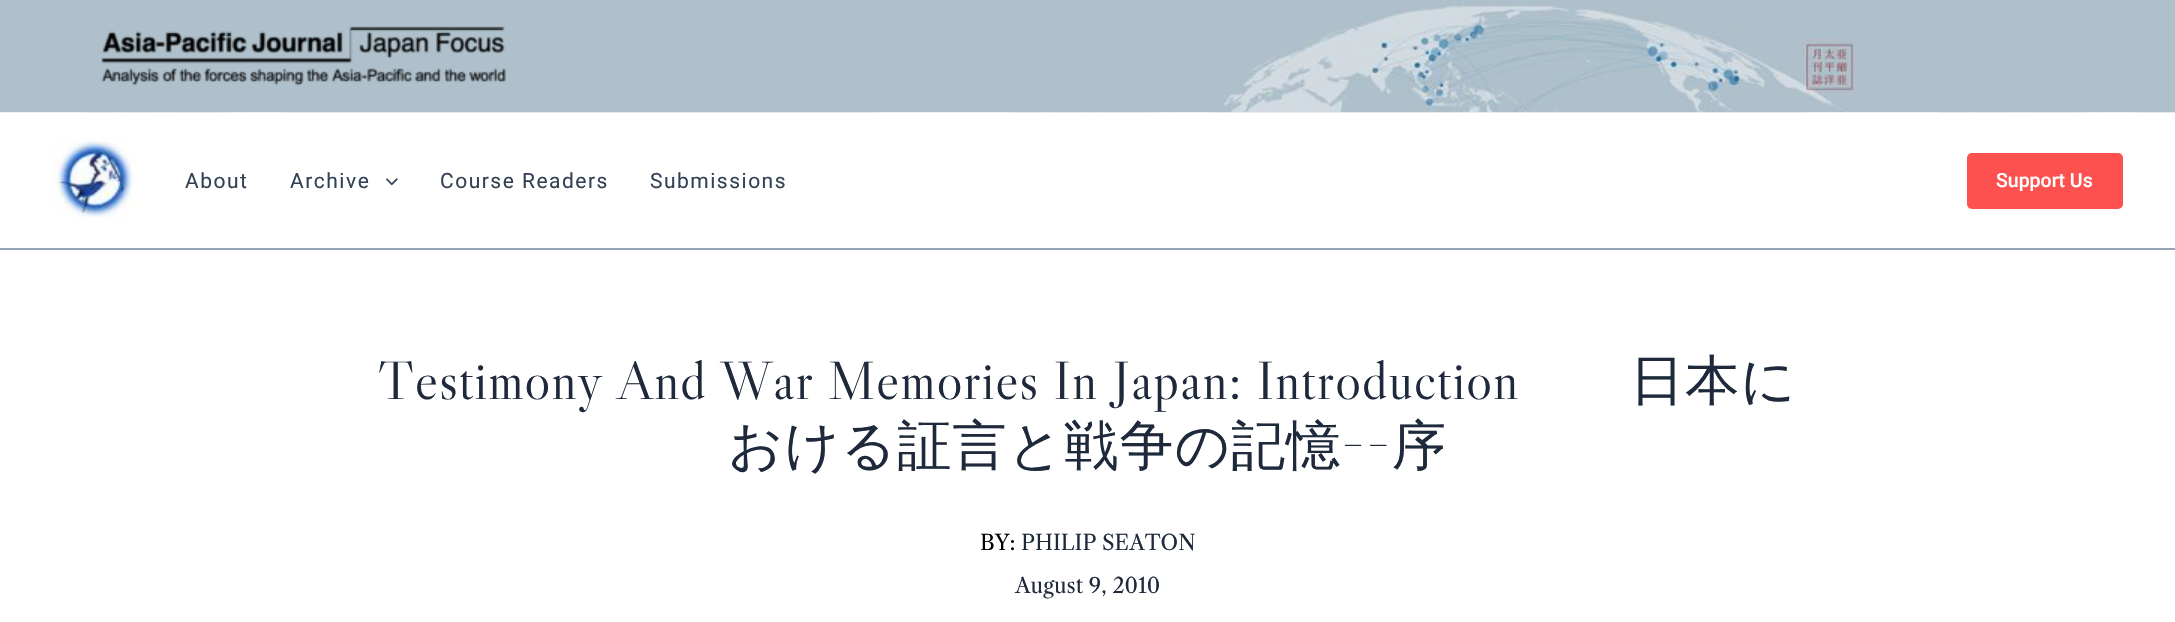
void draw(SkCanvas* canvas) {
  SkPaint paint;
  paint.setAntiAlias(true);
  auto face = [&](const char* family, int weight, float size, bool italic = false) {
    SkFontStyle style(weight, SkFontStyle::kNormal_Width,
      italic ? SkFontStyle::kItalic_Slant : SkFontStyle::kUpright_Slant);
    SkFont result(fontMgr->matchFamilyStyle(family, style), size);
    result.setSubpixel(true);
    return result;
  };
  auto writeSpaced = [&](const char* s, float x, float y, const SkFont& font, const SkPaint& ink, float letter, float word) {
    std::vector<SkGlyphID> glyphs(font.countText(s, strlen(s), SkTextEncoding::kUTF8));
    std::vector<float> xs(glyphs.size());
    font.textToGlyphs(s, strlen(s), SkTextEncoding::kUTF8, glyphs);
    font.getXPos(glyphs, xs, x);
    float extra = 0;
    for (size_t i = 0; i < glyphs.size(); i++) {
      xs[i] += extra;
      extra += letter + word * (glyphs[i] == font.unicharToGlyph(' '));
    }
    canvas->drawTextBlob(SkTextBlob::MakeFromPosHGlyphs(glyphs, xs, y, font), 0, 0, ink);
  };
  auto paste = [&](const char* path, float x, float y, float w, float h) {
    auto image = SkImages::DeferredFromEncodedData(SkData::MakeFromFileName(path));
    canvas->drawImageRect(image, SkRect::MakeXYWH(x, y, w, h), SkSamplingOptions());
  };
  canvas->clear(0xffffffff);
  paste("img/1.png", 0, 0, 2175, 113);
  paste("img/2.png", 101, 26, 405, 60);
  paste("img/3.png", 0, 112, 2175, 1);
  paint.setColor(0xff94a3b8);
  canvas->drawRect(SkRect::MakeXYWH(0, 248, 2175, 2), paint);
  paste("img/4.png", 52, 138, 85, 84);
  paste("img/5.png", 386, 178, 12, 8);
  paint.setColor(0xfffc514e);
  canvas->drawRoundRect(SkRect::MakeXYWH(1967, 153, 156, 56), 5, 5, paint);
  auto f0 = face("Roboto", 400, 21);
  paint.setColor(0xff334155);
  {
    const struct { const char* s; float x, y; } items[] = {
      {"About", 185, 188},
      {"Archive", 290, 188},
      {"Course Readers", 440, 188},
      {"Submissions", 650, 188},
    };
    for (auto [s, x, y] : items) {
      writeSpaced(s, x, y, f0, paint, 1.5f, 0);
    }
  }
  auto f1 = face("Roboto", 500, 19.5f);
  paint.setColor(0xffffffff);
  canvas->drawString("Support Us", 1996, 187, f1, paint);
  auto f2 = face("Libre Caslon Display", 400, 54);
  paint.setColor(0xff1e293b);
  writeSpaced("Testimony And War Memories In Japan: Introduction", 378, 399, f2, paint, 1.2f, 0);
  auto f3 = face("WenQuanYi Zen Hei", 500, 54);
  writeSpaced("日本に", 1630, 399, f3, paint, 1.2f, 0);
  writeSpaced("おける証言と戦争の記憶", 728, 464, f3, paint, 1.2f, 0);
  writeSpaced("−−", 1341, 464, f2, paint, 1.2f, 0);
  writeSpaced("序", 1392, 464, f3, paint, 1.2f, 0);
  auto f4 = face("Libre Caslon Text", 400, 21);
  paint.setColor(0xff000000);
  canvas->drawString("BY:", 980, 550, f4, paint);
  paint.setColor(0xff1e293b);
  canvas->drawString("PHILIP SEATON", 1021, 550, f4, paint);
  canvas->drawString("August 9, 2010", 1015, 593, f4, paint);
}
